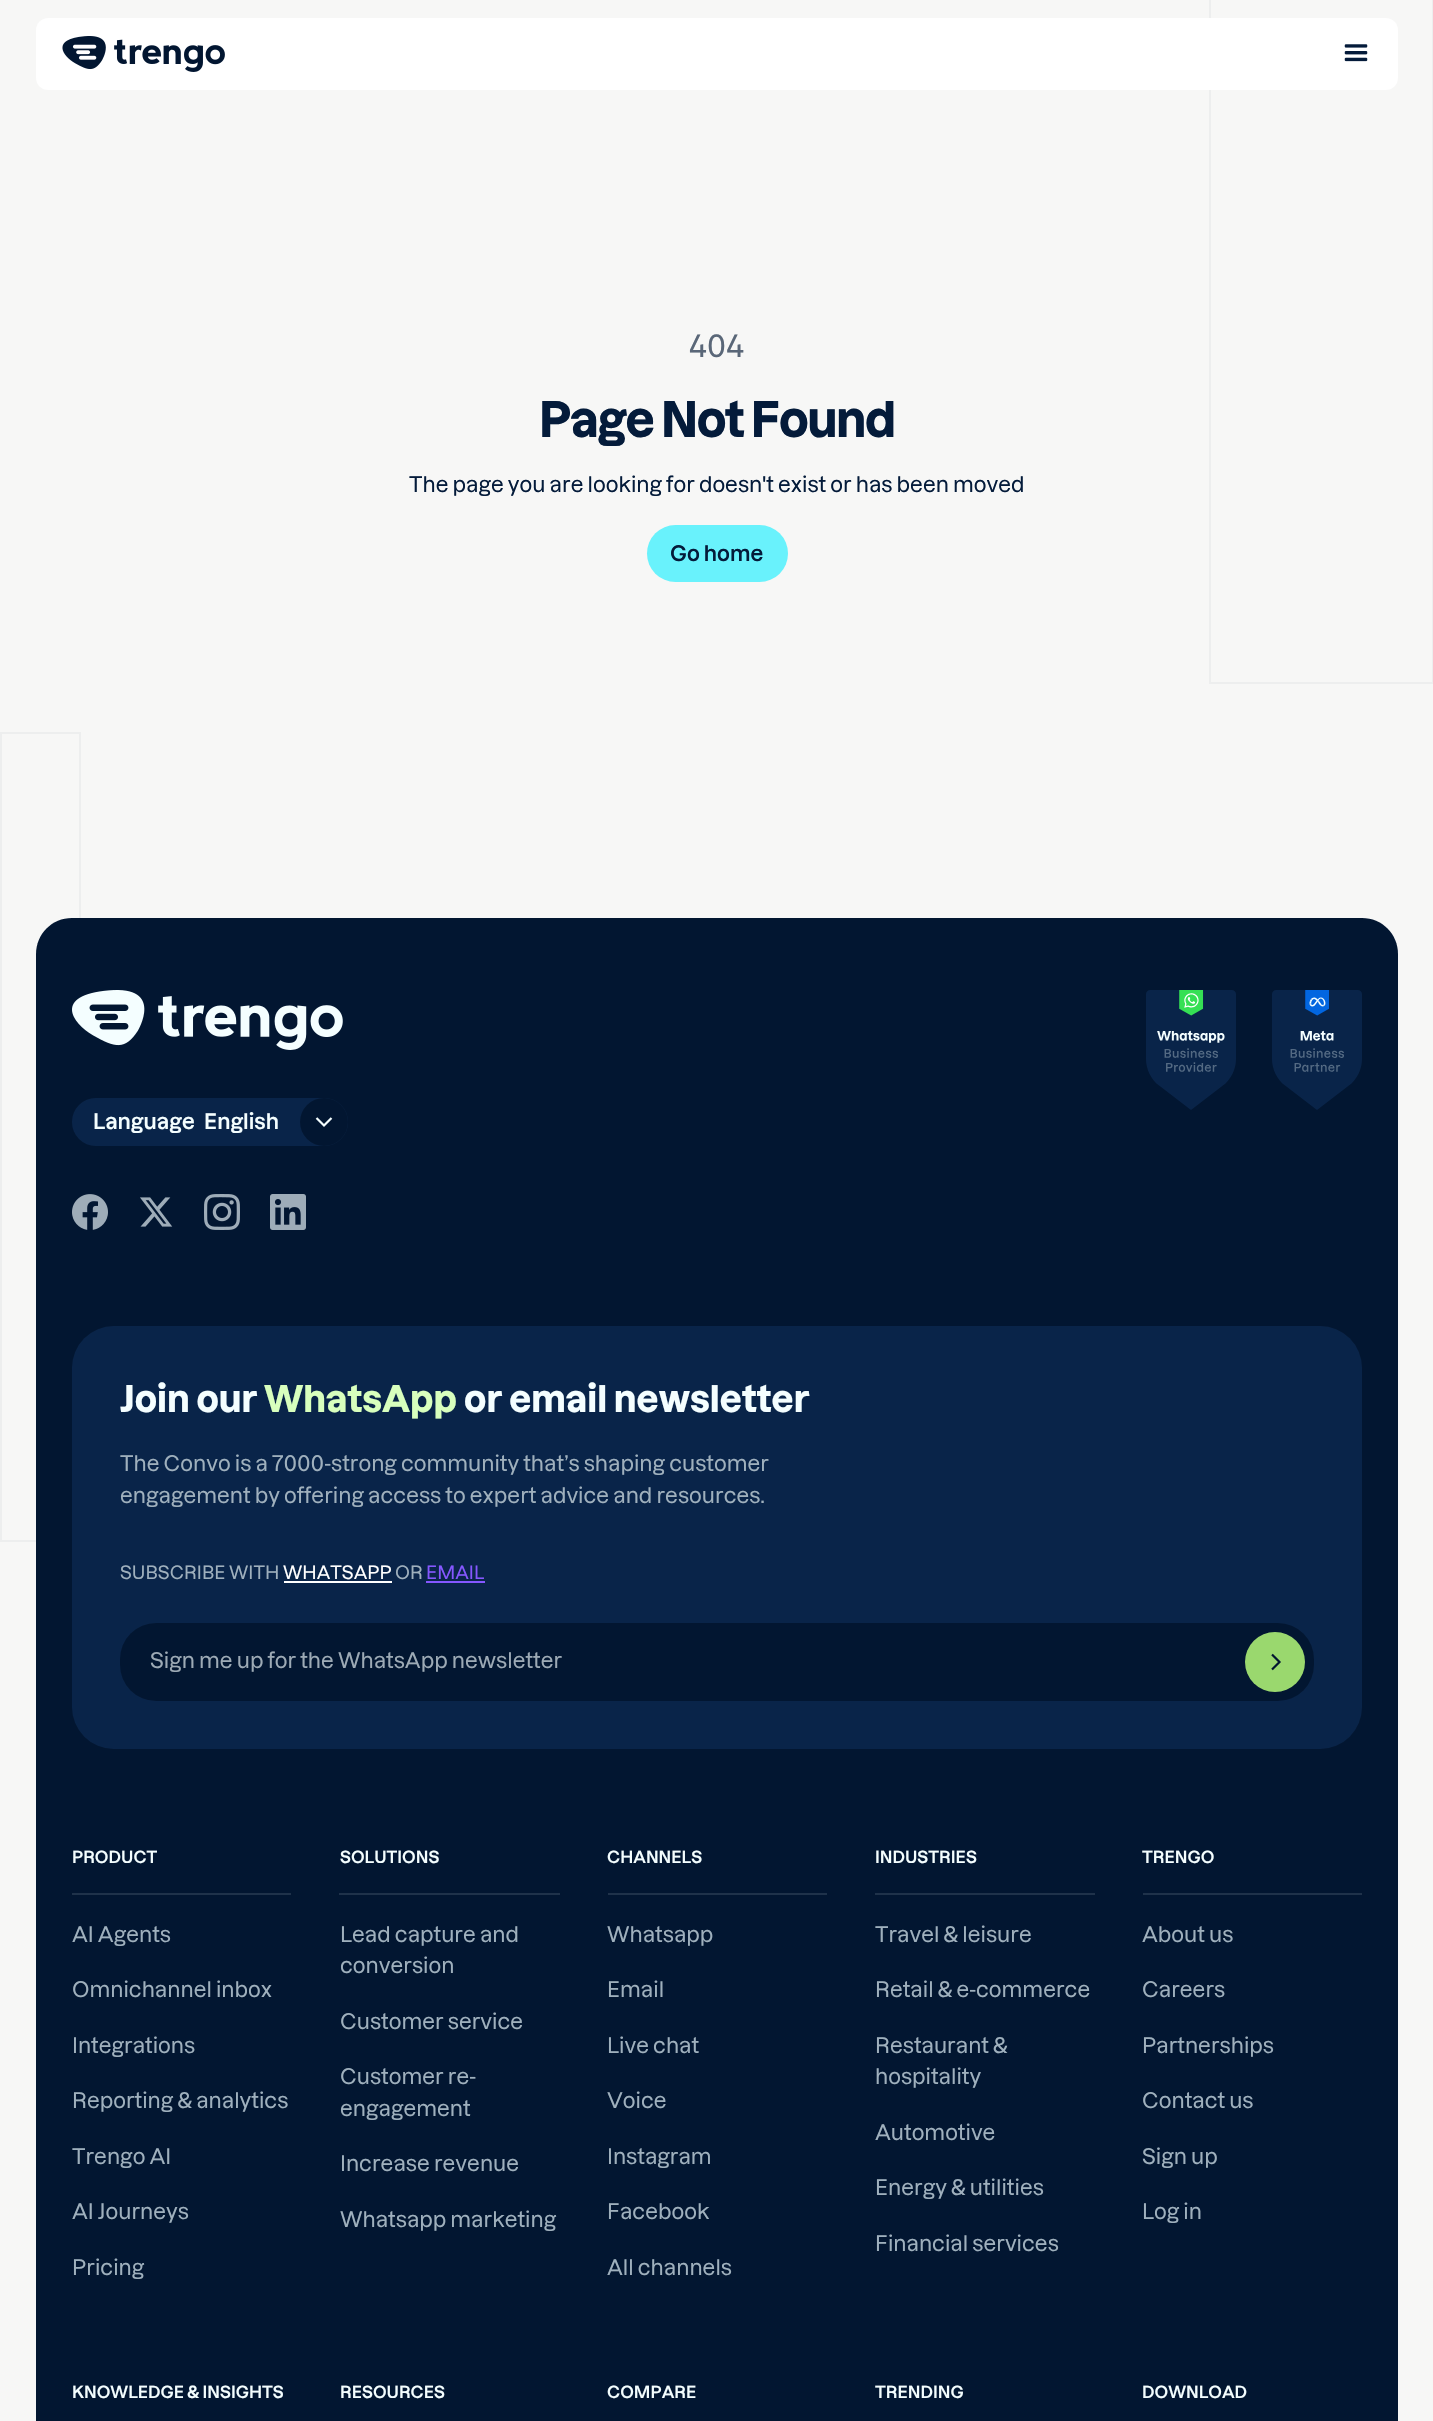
void draw(SkCanvas* canvas) {
  SkPaint paint;
  paint.setAntiAlias(true);
  auto face = [&](const char* family, int weight, float size, bool italic = false) {
    SkFontStyle style(weight, SkFontStyle::kNormal_Width,
      italic ? SkFontStyle::kItalic_Slant : SkFontStyle::kUpright_Slant);
    SkFont result(fontMgr->matchFamilyStyle(family, style), size);
    result.setSubpixel(true);
    return result;
  };
  auto writeSpaced = [&](const char* s, float x, float y, const SkFont& font, const SkPaint& ink, float letter, float word) {
    std::vector<SkGlyphID> glyphs(font.countText(s, strlen(s), SkTextEncoding::kUTF8));
    std::vector<float> xs(glyphs.size());
    font.textToGlyphs(s, strlen(s), SkTextEncoding::kUTF8, glyphs);
    font.getXPos(glyphs, xs, x);
    float extra = 0;
    for (size_t i = 0; i < glyphs.size(); i++) {
      xs[i] += extra;
      extra += letter + word * (glyphs[i] == font.unicharToGlyph(' '));
    }
    canvas->drawTextBlob(SkTextBlob::MakeFromPosHGlyphs(glyphs, xs, y, font), 0, 0, ink);
  };
  auto paste = [&](const char* path, float x, float y, float w, float h) {
    auto image = SkImages::DeferredFromEncodedData(SkData::MakeFromFileName(path));
    canvas->drawImageRect(image, SkRect::MakeXYWH(x, y, w, h), SkSamplingOptions());
  };
  auto shape = [&](const char* data, bool evenOdd = false) {
    SkPath result = *SkParsePath::FromSVGString(data);
    if (evenOdd) result.setFillType(SkPathFillType::kEvenOdd);
    return result;
  };
  canvas->clear(0xfff7f7f6);
  paint.setStroke(true);
  paint.setStrokeWidth(2);
  paint.setColor(0x0a021631);
  canvas->drawRect(SkRect::MakeXYWH(1210, -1, 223, 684), paint);
  paint.setStroke(false);
  paint.setColor(0xffffffff);
  canvas->drawRoundRect(SkRect::MakeXYWH(36, 18, 1362, 72), 12, 12, paint);
  paste("img/1.png", 62, 36, 163, 36);
  paste("img/2.png", 1344, 44, 24, 18);
  paint.setColor(0xff69f2fc);
  canvas->drawRoundRect(SkRect::MakeXYWH(647, 525, 141, 57), 28.5f, 28.5f, paint);
  paint.setStroke(true);
  paint.setColor(0x0a021631);
  canvas->drawRect(SkRect::MakeXYWH(1, 733, 79, 808), paint);
  paint.setStroke(false);
  paint.setColor(0xff021631);
  canvas->drawPath(shape("M72 918H1362C1382 918 1398 934 1398 954V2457H36V954C36 934 52 918 72 918Z"), paint);
  paste("img/3.png", 1146, 990, 90, 120);
  paste("img/4.png", 1272, 990, 90, 120);
  paste("img/5.png", 72, 990, 271, 60);
  paint.setColor(0xff092449);
  canvas->drawRoundRect(SkRect::MakeXYWH(72, 1098, 276, 48), 24, 24, paint);
  paint.setColor(0xff021631);
  canvas->drawCircle(324, 1122, 24, paint);
  paint.setStroke(true);
  paint.setStrokeWidth(2.2f);
  paint.setColor(0xfff4feff);
  canvas->drawPath(shape("M331.5 1118L324 1125.5L316.5 1118"), paint);
  paste("img/6.png", 72, 1194, 36, 36);
  paste("img/7.png", 140, 1197, 33, 30);
  paste("img/8.png", 204, 1194, 36, 36);
  paste("img/9.png", 270, 1194, 36, 36);
  paint.setStroke(false);
  paint.setColor(0xff092449);
  canvas->drawRoundRect(SkRect::MakeXYWH(72, 1326, 1290, 423), 42, 42, paint);
  paint.setColor(0xffffffff);
  canvas->drawRect(SkRect::MakeXYWH(284, 1581, 108, 2), paint);
  paint.setColor(0xff8557ff);
  canvas->drawRect(SkRect::MakeXYWH(426, 1581, 59, 2), paint);
  paint.setColor(0xff021631);
  canvas->drawRoundRect(SkRect::MakeXYWH(120, 1623, 1194, 78), 36, 36, paint);
  paint.setColor(0xff9ad86e);
  canvas->drawCircle(1275, 1662, 30, paint);
  paint.setStroke(true);
  paint.setColor(0xff021631);
  canvas->drawPath(shape("M1272 1654.5L1279.5 1662L1272 1669.5"), paint);
  paint.setStroke(false);
  {
    const struct { float x, y, w, h; SkColor color; } items[] = {
      {72, 1893, 219, 2, 0xff1f324a},
      {339, 1893, 221, 2, 0xff1f324a},
      {608, 1893, 219, 2, 0xff1f324a},
      {875, 1893, 220, 2, 0xff1f324a},
      {1143, 1893, 219, 2, 0xff1f324a},
    };
    for (auto [x, y, w, h, color] : items) {
      paint.setColor(color);
      canvas->drawRect(SkRect::MakeXYWH(x, y, w, h), paint);
    }
  }
  auto f0 = face("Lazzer", 500, 30);
  paint.setColor(0xff5a6778);
  canvas->drawString("404", 689, 357, f0, paint);
  auto f1 = face("Lazzer", 700, 48);
  paint.setColor(0xff041b3a);
  writeSpaced("Page Not Found", 539, 437, f1, paint, -1.5f, 0);
  auto f2 = face("Lazzer", 500, 21);
  canvas->drawString("The page you are looking for doesn't exist or has been moved", 409, 492, f2, paint);
  auto f3 = face("Lazzer", 600, 21);
  canvas->drawString("Go home", 670, 561, f3, paint);
  paint.setColor(0xfff4feff);
  canvas->drawString("Language", 93, 1129, f3, paint);
  canvas->drawString("English", 204, 1129, f3, paint);
  auto f4 = face("Lazzer", 700, 36);
  canvas->drawString("Join our", 120, 1412, f4, paint);
  paint.setColor(0xffd8ffbd);
  canvas->drawString("WhatsApp", 264, 1412, f4, paint);
  paint.setColor(0xfff4feff);
  canvas->drawString("or email newsletter", 464, 1412, f4, paint);
  paint.setColor(0xff9fb0bd);
  canvas->drawString("The Convo is a 7000-strong community that’s shaping customer", 120, 1471, f2, paint);
  canvas->drawString("engagement by offering access to expert advice and resources.", 120, 1503, f2, paint);
  auto f5 = face("Lazzer", 500, 18);
  canvas->drawString("SUBSCRIBE WITH", 120, 1579, f5, paint);
  paint.setColor(0xffffffff);
  canvas->drawString("WHATSAPP", 283, 1579, f5, paint);
  paint.setColor(0xff9fb0bd);
  canvas->drawString("OR", 395, 1579, f5, paint);
  paint.setColor(0xff8557ff);
  canvas->drawString("EMAIL", 426, 1579, f5, paint);
  paint.setColor(0xff9daab5);
  canvas->drawString("Sign me up for the WhatsApp newsletter", 150, 1668, f2, paint);
  auto f6 = face("Lazzer", 600, 16.5f);
  paint.setColor(0xfff4feff);
  canvas->drawString("PRODUCT", 72, 1863, f6, paint);
  paint.setColor(0xff9fb0bd);
  {
    const struct { const char* s; float x, y; } items[] = {
      {"AI Agents", 72, 1942},
      {"Omnichannel inbox", 72, 1997},
      {"Integrations", 72, 2053},
      {"Reporting & analytics", 72, 2108},
      {"Trengo AI", 72, 2164},
      {"AI Journeys", 72, 2219},
      {"Pricing", 72, 2275},
    };
    for (auto [s, x, y] : items) {
      canvas->drawString(s, x, y, f2, paint);
    }
  }
  paint.setColor(0xfff4feff);
  canvas->drawString("SOLUTIONS", 340, 1863, f6, paint);
  paint.setColor(0xff9fb0bd);
  {
    const struct { const char* s; float x, y; } items[] = {
      {"Lead capture and", 340, 1942},
      {"conversion", 340, 1973},
      {"Customer service", 340, 2029},
      {"Customer re-", 340, 2084},
      {"engagement", 340, 2116},
      {"Increase revenue", 340, 2171},
      {"Whatsapp marketing", 340, 2227},
    };
    for (auto [s, x, y] : items) {
      canvas->drawString(s, x, y, f2, paint);
    }
  }
  paint.setColor(0xfff4feff);
  canvas->drawString("CHANNELS", 607, 1863, f6, paint);
  paint.setColor(0xff9fb0bd);
  {
    const struct { const char* s; float x, y; } items[] = {
      {"Whatsapp", 607, 1942},
      {"Email", 607, 1997},
      {"Live chat", 607, 2053},
      {"Voice", 607, 2108},
      {"Instagram", 607, 2164},
      {"Facebook", 607, 2219},
      {"All channels", 607, 2275},
    };
    for (auto [s, x, y] : items) {
      canvas->drawString(s, x, y, f2, paint);
    }
  }
  paint.setColor(0xfff4feff);
  canvas->drawString("INDUSTRIES", 875, 1863, f6, paint);
  paint.setColor(0xff9fb0bd);
  {
    const struct { const char* s; float x, y; } items[] = {
      {"Travel & leisure", 875, 1942},
      {"Retail & e-commerce", 875, 1997},
      {"Restaurant &", 875, 2053},
      {"hospitality", 875, 2084},
      {"Automotive", 875, 2140},
      {"Energy & utilities", 875, 2195},
      {"Financial services", 875, 2251},
    };
    for (auto [s, x, y] : items) {
      canvas->drawString(s, x, y, f2, paint);
    }
  }
  paint.setColor(0xfff4feff);
  canvas->drawString("TRENGO", 1142, 1863, f6, paint);
  paint.setColor(0xff9fb0bd);
  {
    const struct { const char* s; float x, y; } items[] = {
      {"About us", 1142, 1942},
      {"Careers", 1142, 1997},
      {"Partnerships", 1142, 2053},
      {"Contact us", 1142, 2108},
      {"Sign up", 1142, 2164},
      {"Log in", 1142, 2219},
    };
    for (auto [s, x, y] : items) {
      canvas->drawString(s, x, y, f2, paint);
    }
  }
  paint.setColor(0xfff4feff);
  {
    const struct { const char* s; float x, y; } items[] = {
      {"KNOWLEDGE & INSIGHTS", 72, 2398},
      {"RESOURCES", 340, 2398},
      {"COMPARE", 607, 2398},
      {"TRENDING", 875, 2398},
      {"DOWNLOAD", 1142, 2398},
    };
    for (auto [s, x, y] : items) {
      canvas->drawString(s, x, y, f6, paint);
    }
  }
}
